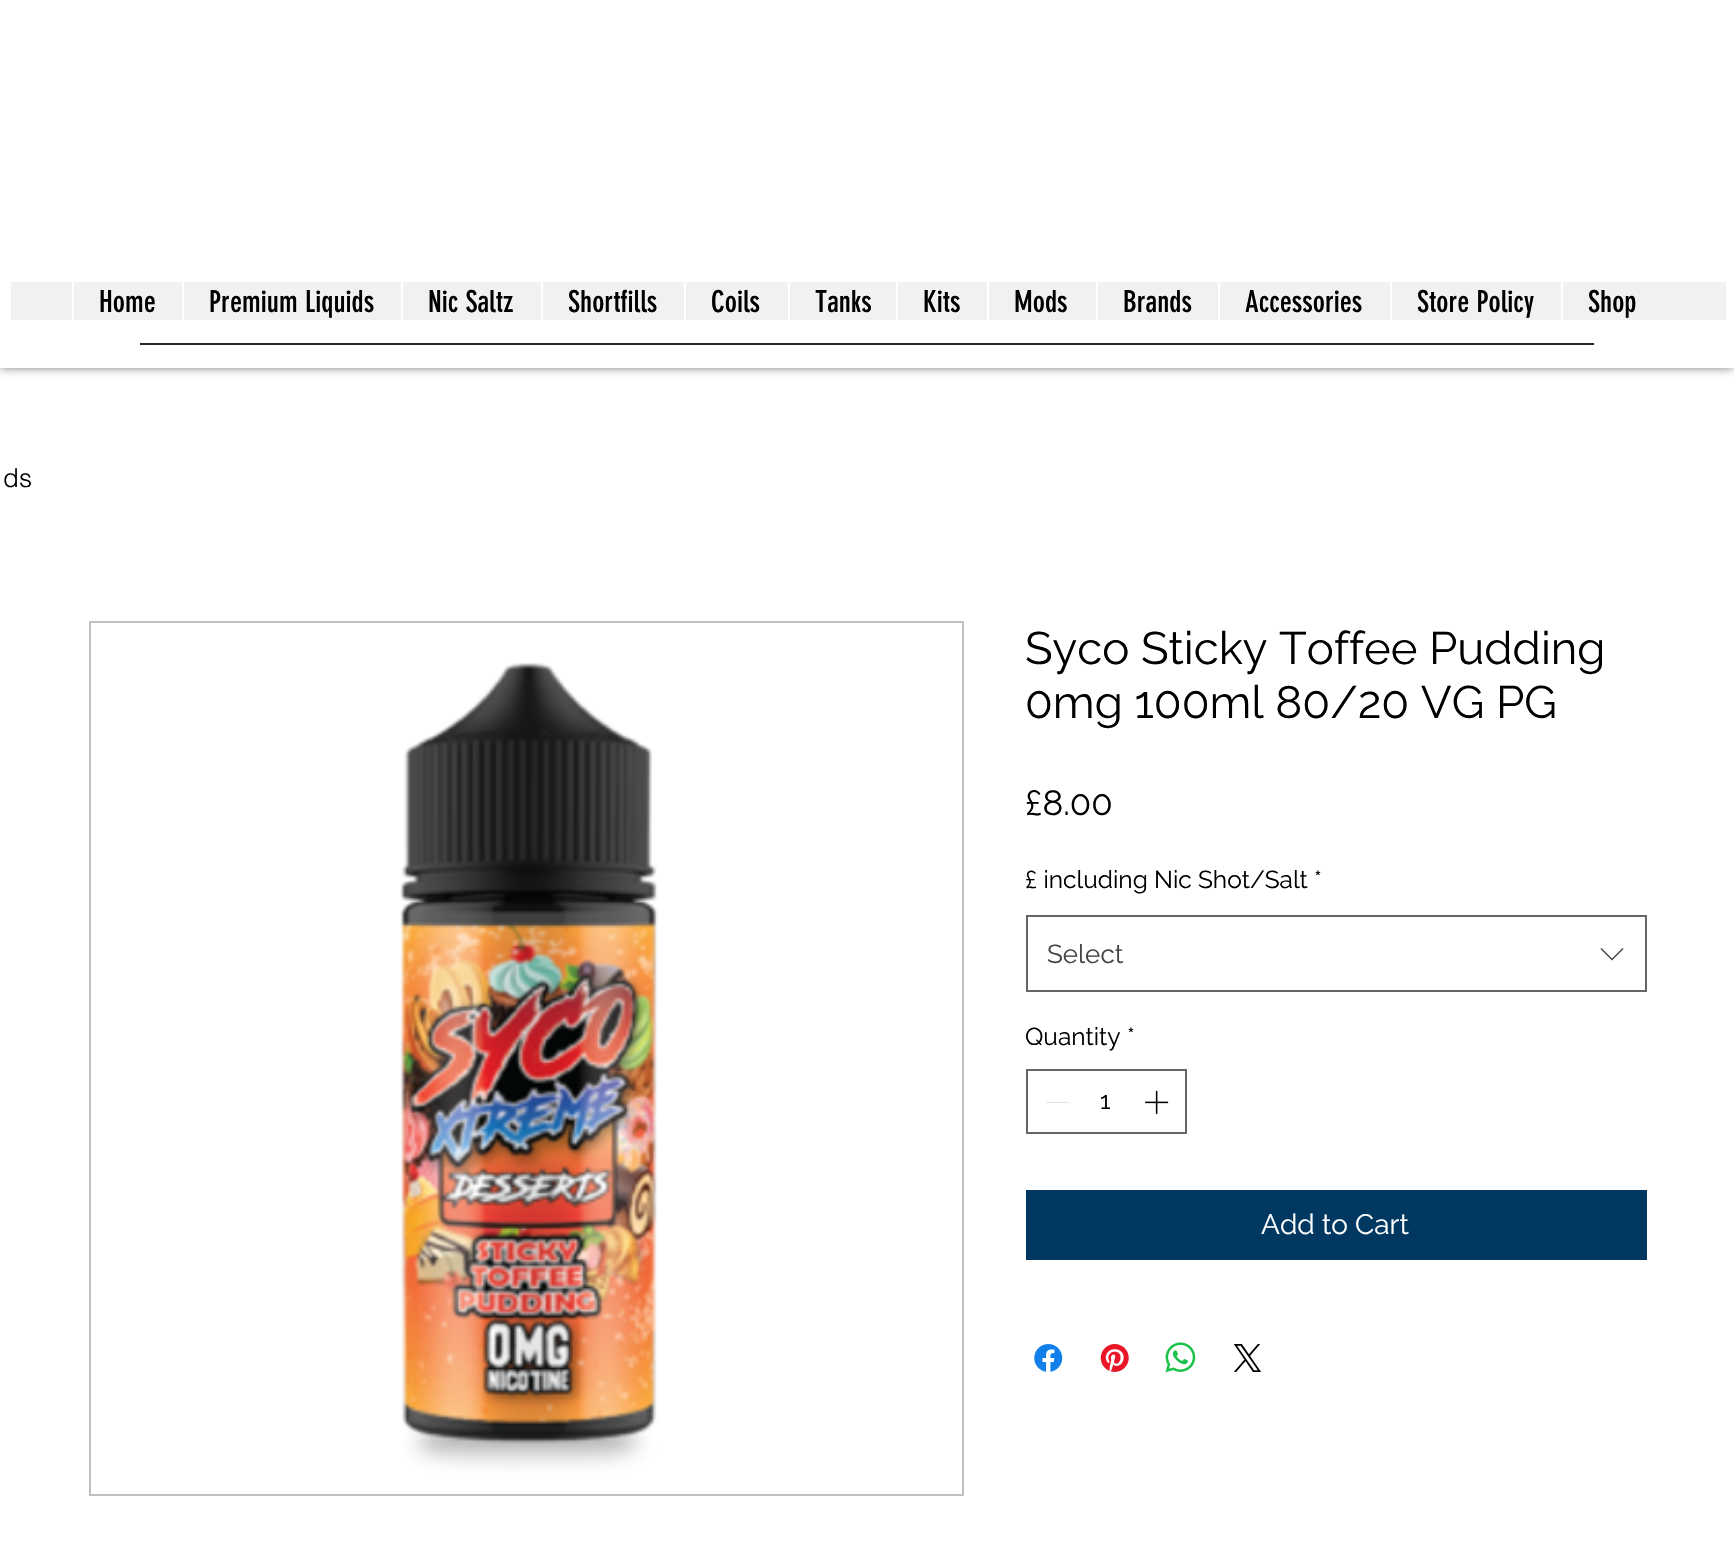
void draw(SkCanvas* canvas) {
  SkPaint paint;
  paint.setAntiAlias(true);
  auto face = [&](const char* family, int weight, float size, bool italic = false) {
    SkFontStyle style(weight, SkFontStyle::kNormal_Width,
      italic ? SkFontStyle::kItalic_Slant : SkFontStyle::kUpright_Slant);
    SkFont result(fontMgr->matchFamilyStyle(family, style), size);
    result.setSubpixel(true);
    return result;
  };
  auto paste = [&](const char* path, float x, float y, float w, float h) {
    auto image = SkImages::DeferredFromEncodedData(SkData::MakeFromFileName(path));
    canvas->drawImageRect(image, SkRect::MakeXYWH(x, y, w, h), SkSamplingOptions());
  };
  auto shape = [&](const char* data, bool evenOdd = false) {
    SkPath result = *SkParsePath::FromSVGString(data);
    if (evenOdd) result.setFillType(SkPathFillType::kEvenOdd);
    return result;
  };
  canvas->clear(0xffffffff);
  paint.setColor(0x80000000);
  paint.setMaskFilter(SkMaskFilter::MakeBlur(kNormal_SkBlurStyle, 4.5f));
  canvas->drawRect(SkRect::MakeXYWH(0, -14, 1734, 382), paint);
  paint.setMaskFilter(nullptr);
  {
    const struct { float x, y, w, h; SkColor color; } items[] = {
      {0, 0, 1734, 368, 0xffffffff},
      {11, 282, 1715, 38, 0xfff1f1f1},
      {72, 282, 2, 38, 0xffffffff},
      {182, 282, 2, 38, 0xffffffff},
      {401, 282, 2, 38, 0xffffffff},
      {541, 282, 2, 38, 0xffffffff},
      {684, 282, 2, 38, 0xffffffff},
      {788, 282, 2, 38, 0xffffffff},
      {896, 282, 2, 38, 0xffffffff},
      {987, 282, 2, 38, 0xffffffff},
      {1096, 282, 2, 38, 0xffffffff},
      {1218, 282, 2, 38, 0xffffffff},
      {1390, 282, 2, 38, 0xffffffff},
      {1561, 282, 2, 38, 0xffffffff},
      {140, 343, 1454, 2, 0xff262626},
    };
    for (auto [x, y, w, h, color] : items) {
      paint.setColor(color);
      canvas->drawRect(SkRect::MakeXYWH(x, y, w, h), paint);
    }
  }
  paint.setStroke(true);
  paint.setStrokeWidth(2);
  paint.setColor(0xffbfbfbf);
  canvas->drawRect(SkRect::MakeXYWH(90, 622, 873, 873), paint);
  paste("img/1.png", 400, 662, 258, 811);
  paint.setColor(0xff666666);
  canvas->drawRect(SkRect::MakeXYWH(1027, 916, 619, 75), paint);
  paint.setStroke(false);
  paint.setColor(0xff444444);
  canvas->drawPath(shape("M1622.5 948L1623.5 949L1612 960.5L1600.5 949L1601.5 948L1612 958.5Z", true), paint);
  paint.setStroke(true);
  paint.setColor(0xff666666);
  canvas->drawRect(SkRect::MakeXYWH(1027, 1070, 159, 63), paint);
  paint.setStroke(false);
  paint.setColor(0xffe3e3e3);
  canvas->drawRect(SkRect::MakeXYWH(1046, 1102, 23, 1), paint);
  paste("img/2.png", 1145, 1090, 24, 24);
  paint.setColor(0xff003862);
  canvas->drawRect(SkRect::MakeXYWH(1026, 1190, 621, 70), paint);
  paste("img/3.png", 1034, 1344, 29, 28);
  paste("img/4.png", 1100, 1344, 29, 28);
  paste("img/5.png", 1165, 1342, 31, 31);
  paste("img/6.png", 1233, 1344, 28, 28);
  auto f0 = face("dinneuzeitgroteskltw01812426", 400, 29.75f);
  paint.setColor(0xff000000);
  {
    const struct { const char* s; float x, y; } items[] = {
      {"Home", 99, 312},
      {"Premium Liquids", 209, 312},
      {"Nic Saltz", 428, 312},
      {"Shortfills", 568, 312},
      {"Coils", 711, 312},
      {"Tanks", 815, 312},
      {"Kits", 923, 312},
      {"Mods", 1014, 312},
      {"Brands", 1123, 312},
      {"Accessories", 1245, 312},
      {"Store Policy", 1417, 312},
      {"Shop", 1588, 312},
    };
    for (auto [s, x, y] : items) {
      canvas->drawString(s, x, y, f0, paint);
    }
  }
  auto f1 = face("helvetica", 300, 26);
  canvas->drawString("ds", 3, 487, f1, paint);
  auto f2 = face("Raleway", 400, 45.5f);
  canvas->drawString("Syco Sticky Toffee Pudding", 1025, 664, f2, paint);
  canvas->drawString("0mg 100ml 80/20 VG PG", 1025, 718, f2, paint);
  auto f3 = face("Raleway", 400, 35);
  canvas->drawString("£8.00", 1025, 815, f3, paint);
  auto f4 = face("Raleway", 400, 24.5f);
  canvas->drawString("£ including Nic Shot/Salt", 1025, 888, f4, paint);
  canvas->drawString("*", 1314, 888, f4, paint);
  auto f5 = face("Raleway", 400, 26);
  paint.setColor(0xff444444);
  canvas->drawString("Select", 1047, 963, f5, paint);
  paint.setColor(0xff000000);
  {
    const struct { const char* s; float x, y; } items[] = {
      {"Quantity", 1025, 1045},
      {"*", 1127, 1045},
      {"1", 1100, 1109},
    };
    for (auto [s, x, y] : items) {
      canvas->drawString(s, x, y, f4, paint);
    }
  }
  auto f6 = face("Raleway", 400, 28);
  paint.setColor(0xffffffff);
  canvas->drawString("Add to Cart", 1261, 1234, f6, paint);
}
